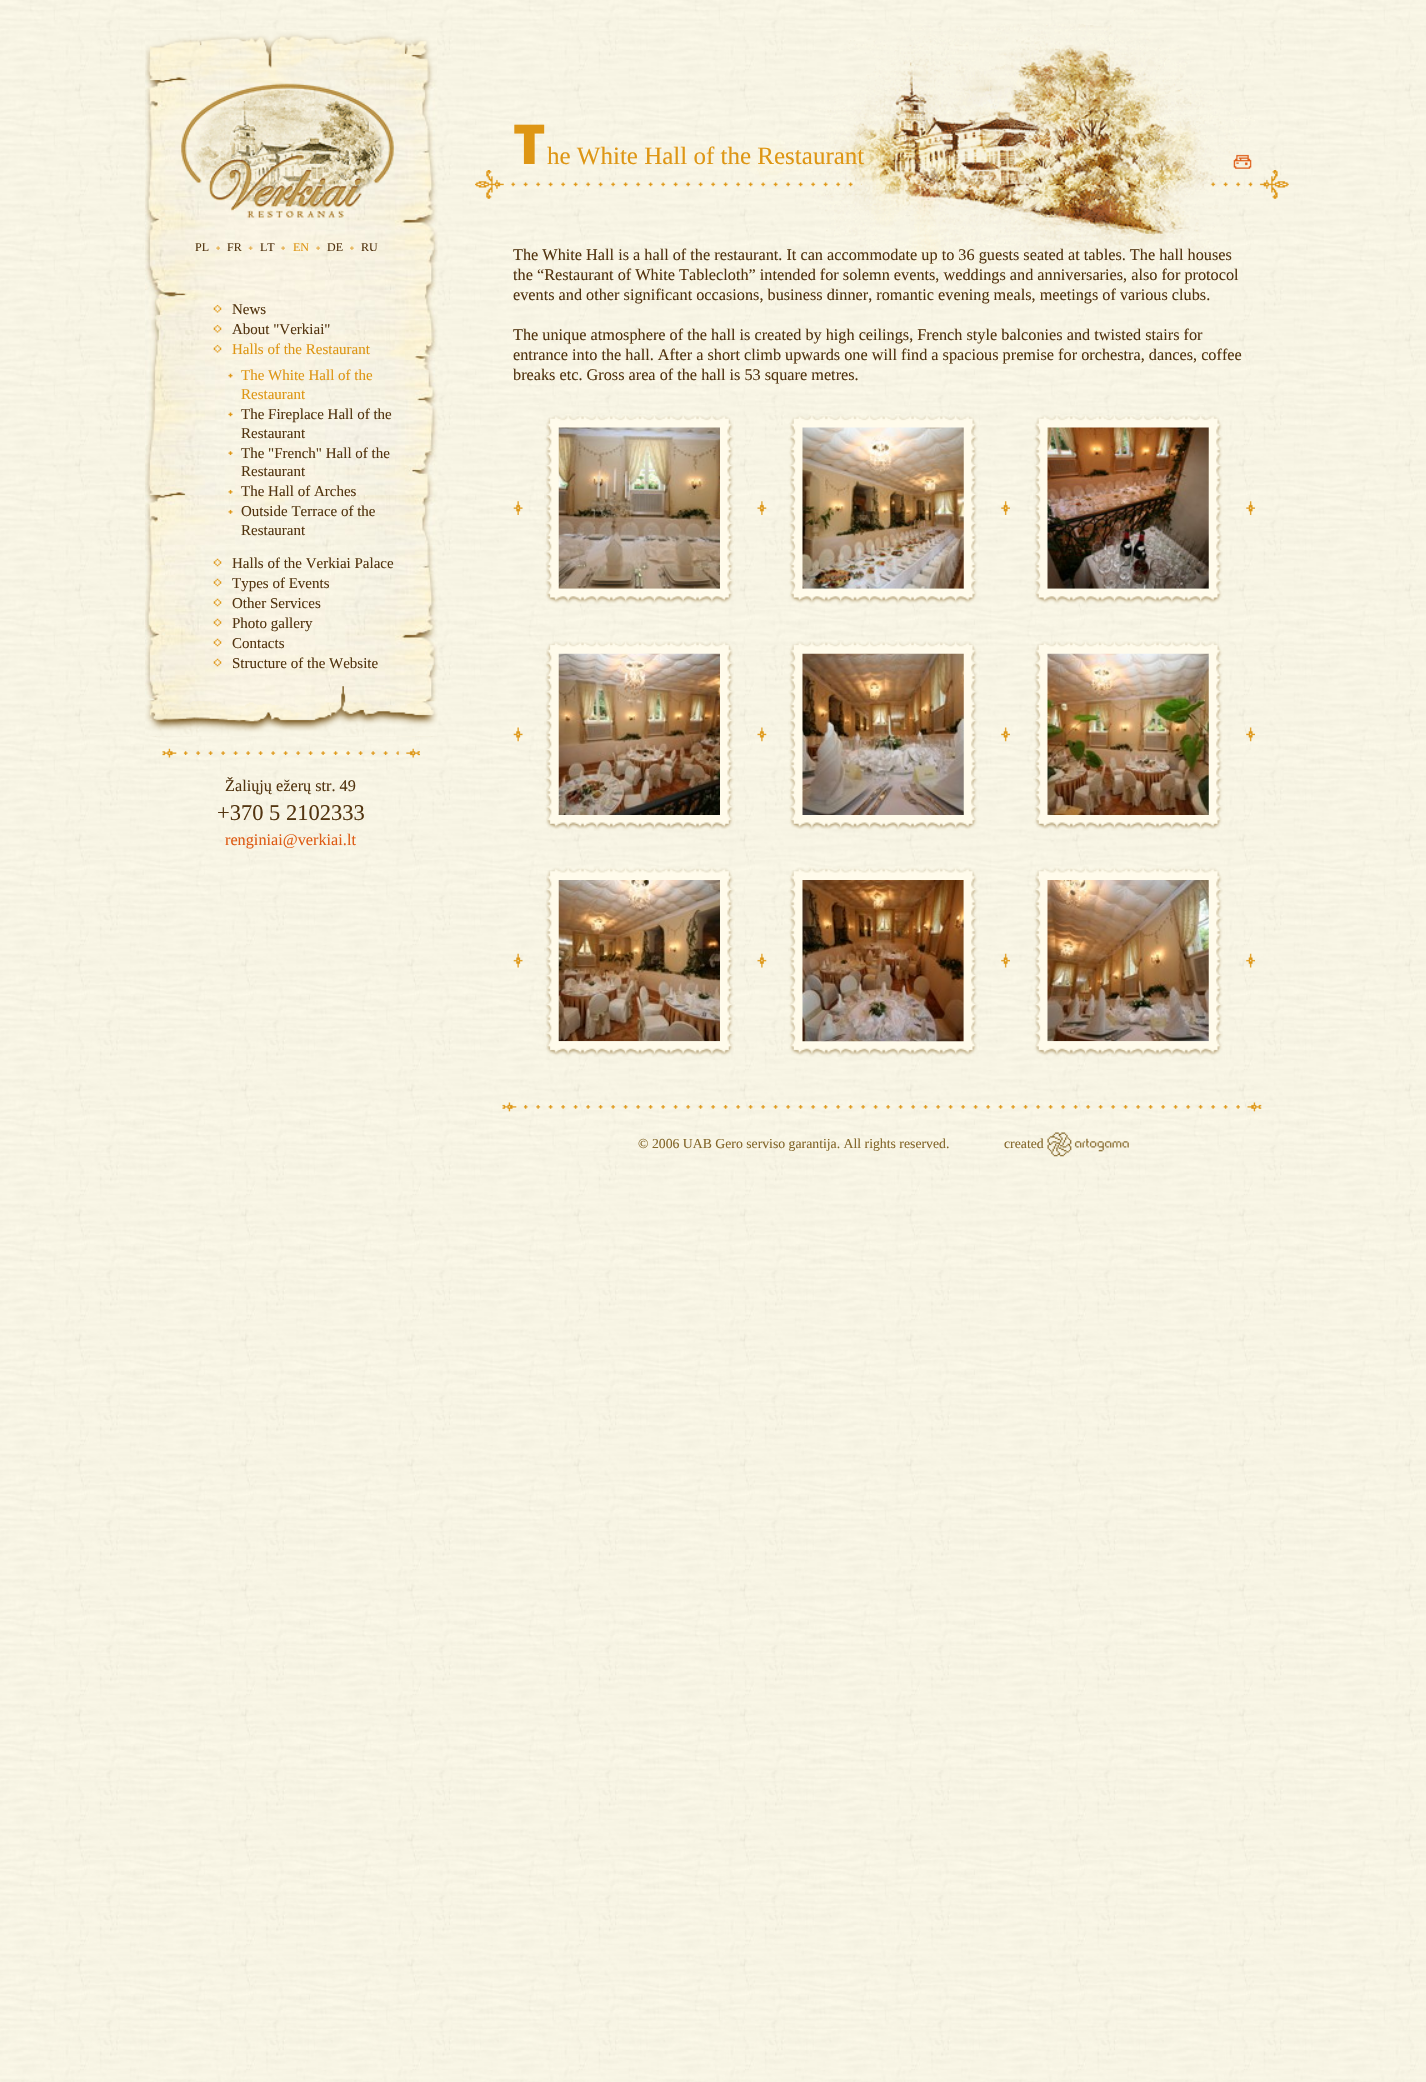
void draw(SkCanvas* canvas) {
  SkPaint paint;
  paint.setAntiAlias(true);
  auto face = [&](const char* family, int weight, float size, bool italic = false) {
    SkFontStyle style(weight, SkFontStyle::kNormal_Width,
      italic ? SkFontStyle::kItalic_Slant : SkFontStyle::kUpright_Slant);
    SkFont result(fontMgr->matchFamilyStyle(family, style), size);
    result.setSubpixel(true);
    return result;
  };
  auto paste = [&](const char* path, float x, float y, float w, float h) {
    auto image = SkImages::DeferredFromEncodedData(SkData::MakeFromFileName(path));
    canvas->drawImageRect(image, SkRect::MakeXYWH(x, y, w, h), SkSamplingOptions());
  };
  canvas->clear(0xffffffff);
  paste("img/1.png", 0, 0, 1426, 2082);
  paste("img/2.png", 145, 30, 293, 707);
  paste("img/3.png", 145, 686, 293, 50);
  paste("img/4.png", 145, 30, 292, 50);
  paste("img/5.png", 181, 83, 213, 136);
  paste("img/6.png", 216, 246, 4, 4);
  paste("img/7.png", 248, 246, 5, 4);
  paste("img/8.png", 281, 246, 4, 4);
  paste("img/9.png", 316, 246, 4, 4);
  paste("img/10.png", 350, 246, 4, 4);
  paste("img/11.png", 213, 304, 9, 9);
  paste("img/12.png", 213, 324, 9, 9);
  paste("img/13.png", 213, 344, 9, 9);
  paste("img/14.png", 228, 373, 5, 5);
  paste("img/15.png", 228, 412, 5, 5);
  paste("img/16.png", 228, 451, 5, 4);
  paste("img/17.png", 228, 489, 5, 5);
  paste("img/18.png", 228, 509, 5, 5);
  paste("img/19.png", 213, 558, 9, 9);
  paste("img/20.png", 213, 578, 9, 9);
  paste("img/21.png", 213, 598, 9, 9);
  paste("img/22.png", 213, 618, 9, 9);
  paste("img/23.png", 213, 638, 9, 9);
  paste("img/24.png", 213, 658, 9, 9);
  paste("img/25.png", 162, 748, 15, 10);
  paste("img/26.png", 183, 751, 216, 4);
  paste("img/27.png", 406, 748, 14, 10);
  paste("img/28.png", 745, 3, 510, 273);
  paste("img/29.png", 1233, 154, 19, 15);
  paste("img/30.png", 475, 170, 29, 29);
  paste("img/31.png", 511, 182, 351, 5);
  paste("img/32.png", 1211, 182, 42, 5);
  paste("img/33.png", 1259, 170, 30, 29);
  paste("img/34.png", 513, 501, 10, 14);
  paste("img/35.png", 544, 414, 191, 191);
  paste("img/36.png", 558, 427, 162, 162);
  paste("img/37.png", 757, 501, 10, 14);
  paste("img/38.png", 788, 414, 190, 191);
  paste("img/39.png", 802, 427, 162, 162);
  paste("img/40.png", 1001, 501, 9, 14);
  paste("img/41.png", 1033, 414, 190, 191);
  paste("img/42.png", 1047, 427, 162, 162);
  paste("img/43.png", 1246, 501, 9, 14);
  paste("img/44.png", 513, 727, 10, 15);
  paste("img/45.png", 544, 640, 191, 191);
  paste("img/46.png", 558, 653, 162, 162);
  paste("img/47.png", 757, 727, 10, 15);
  paste("img/48.png", 788, 640, 191, 191);
  paste("img/49.png", 802, 653, 162, 162);
  paste("img/50.png", 1001, 727, 9, 15);
  paste("img/51.png", 1033, 640, 191, 191);
  paste("img/52.png", 1047, 653, 162, 162);
  paste("img/53.png", 1246, 727, 9, 15);
  paste("img/54.png", 513, 953, 10, 15);
  paste("img/55.png", 544, 866, 191, 191);
  paste("img/56.png", 558, 880, 162, 162);
  paste("img/57.png", 757, 953, 10, 15);
  paste("img/58.png", 788, 866, 191, 191);
  paste("img/59.png", 802, 880, 162, 162);
  paste("img/60.png", 1001, 953, 9, 15);
  paste("img/61.png", 1033, 866, 190, 191);
  paste("img/62.png", 1047, 880, 162, 162);
  paste("img/63.png", 1246, 953, 9, 15);
  paste("img/64.png", 502, 1102, 15, 10);
  paste("img/65.png", 523, 1105, 717, 4);
  paste("img/66.png", 1247, 1102, 15, 10);
  paste("img/67.png", 1047, 1132, 82, 25);
  auto f0 = face("Liberation Serif", 400, 12);
  paint.setColor(0xff533510);
  {
    const struct { const char* s; float x, y; } items[] = {
      {"PL", 195, 251},
      {"FR", 227, 251},
      {"LT", 260, 251},
    };
    for (auto [s, x, y] : items) {
      canvas->drawString(s, x, y, f0, paint);
    }
  }
  paint.setColor(0xffde9614);
  canvas->drawString("EN", 293, 251, f0, paint);
  paint.setColor(0xff533510);
  canvas->drawString("DE", 327, 251, f0, paint);
  canvas->drawString("RU", 361, 251, f0, paint);
  auto f1 = face("Liberation Serif", 400, 15);
  canvas->drawString("News", 232, 314, f1, paint);
  canvas->drawString("About \"Verkiai\"", 232, 334, f1, paint);
  paint.setColor(0xffde9614);
  {
    const struct { const char* s; float x, y; } items[] = {
      {"Halls of the Restaurant", 232, 354},
      {"The White Hall of the", 241, 380},
      {"Restaurant", 241, 399},
    };
    for (auto [s, x, y] : items) {
      canvas->drawString(s, x, y, f1, paint);
    }
  }
  paint.setColor(0xff533510);
  {
    const struct { const char* s; float x, y; } items[] = {
      {"The Fireplace Hall of the", 241, 419},
      {"Restaurant", 241, 438},
      {"The \"French\" Hall of the", 241, 458},
      {"Restaurant", 241, 476},
      {"The Hall of Arches", 241, 496},
      {"Outside Terrace of the", 241, 516},
      {"Restaurant", 241, 535},
      {"Halls of the Verkiai Palace", 232, 568},
      {"Types of Events", 232, 588},
      {"Other Services", 232, 608},
      {"Photo gallery", 232, 628},
      {"Contacts", 232, 648},
      {"Structure of the Website", 232, 668},
    };
    for (auto [s, x, y] : items) {
      canvas->drawString(s, x, y, f1, paint);
    }
  }
  auto f2 = face("Liberation Serif", 400, 16.25f);
  canvas->drawString("Žaliųjų ežerų str. 49", 225, 791, f2, paint);
  auto f3 = face("Liberation Serif", 400, 22.5f);
  canvas->drawString("+370 5 2102333", 217, 820, f3, paint);
  paint.setColor(0xffde5b14);
  canvas->drawString("renginiai@verkiai.lt", 225, 845, f2, paint);
  auto f4 = face("Noto Sans", 900, 55);
  paint.setColor(0xffde9614);
  canvas->drawString("T", 513, 164, f4, paint);
  auto f5 = face("Liberation Serif", 400, 25);
  canvas->drawString("he White Hall of the Restaurant", 547, 164, f5, paint);
  paint.setColor(0xff533510);
  {
    const struct { const char* s; float x, y; } items[] = {
      {"The White Hall is a hall of the restaurant. It can accommodate up to 36 guests seated at tables. The hall houses", 513, 260},
      {"the “Restaurant of White Tablecloth” intended for solemn events, weddings and anniversaries, also for protocol", 513, 280},
      {"events and other significant occasions, business dinner, romantic evening meals, meetings of various clubs.", 513, 300},
      {"The unique atmosphere of the hall is created by high ceilings, French style balconies and twisted stairs for", 513, 340},
      {"entrance into the hall. After a short climb upwards one will find a spacious premise for orchestra, dances, coffee", 513, 360},
      {"breaks etc. Gross area of the hall is 53 square metres.", 513, 380},
    };
    for (auto [s, x, y] : items) {
      canvas->drawString(s, x, y, f2, paint);
    }
  }
  auto f6 = face("Liberation Serif", 400, 13.75f);
  paint.setColor(0xff836629);
  canvas->drawString("© 2006 UAB Gero serviso garantija. All rights reserved.", 638, 1148, f6, paint);
  canvas->drawString("created", 1004, 1148, f6, paint);
}
